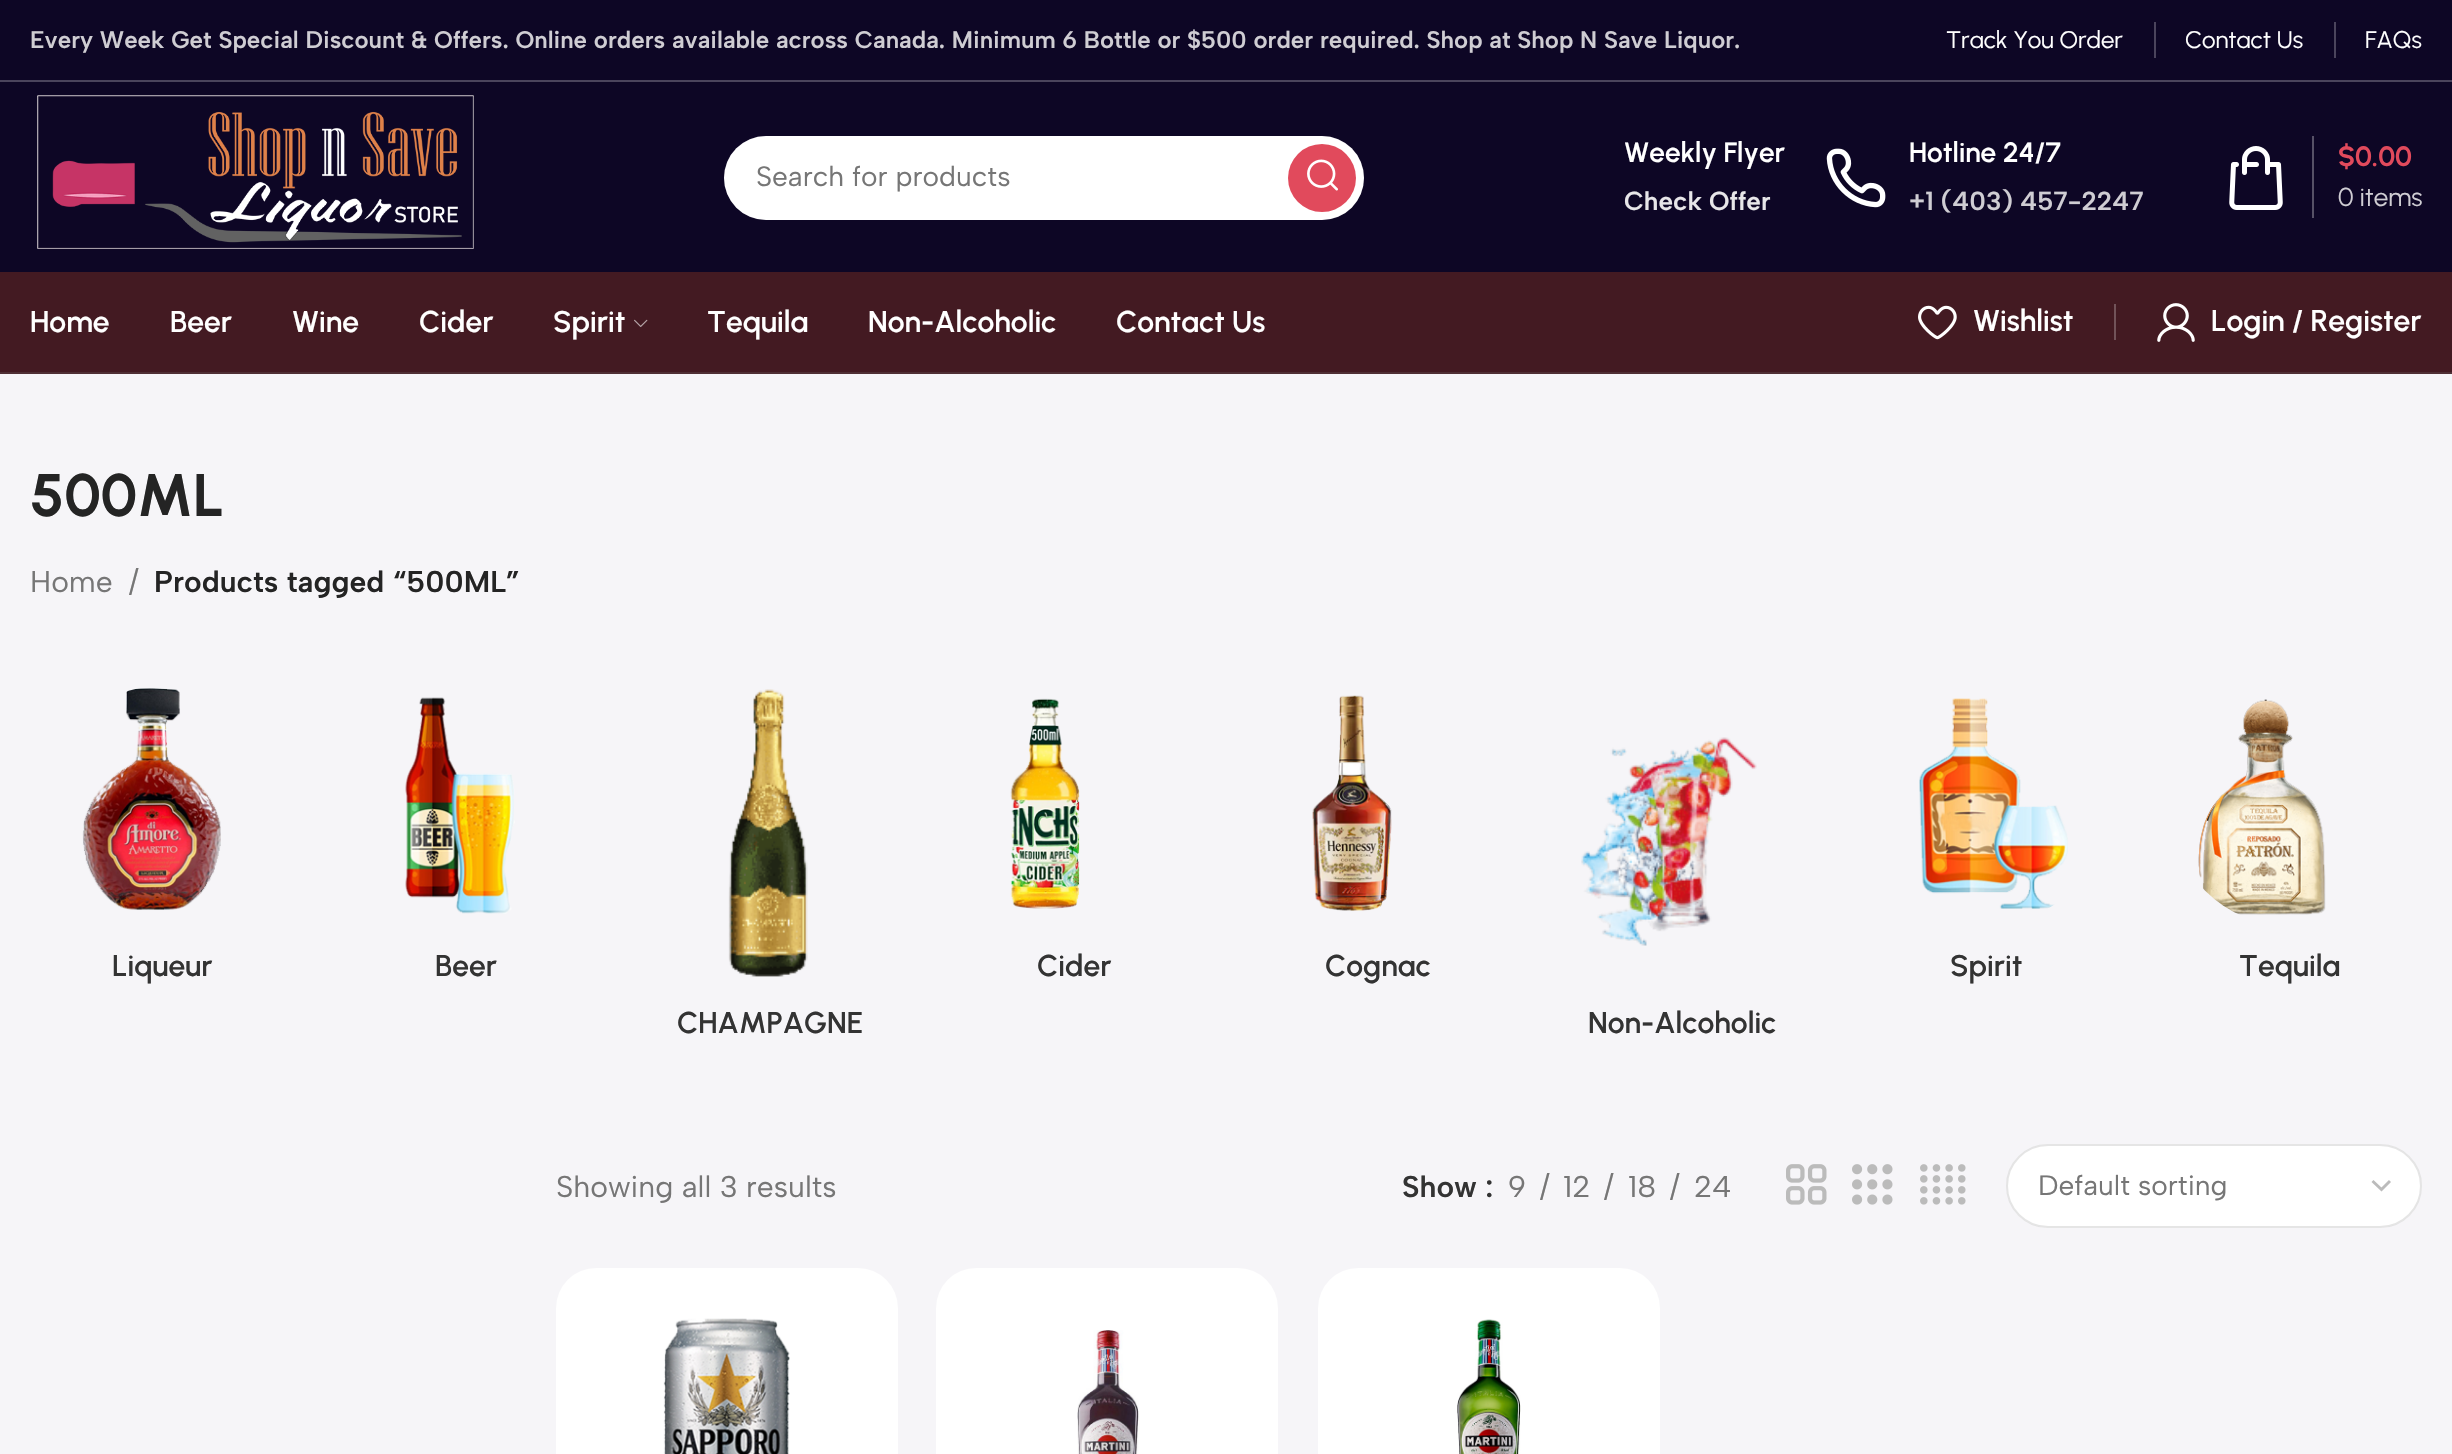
void draw(SkCanvas* canvas) {
  SkPaint paint;
  paint.setAntiAlias(true);
  auto face = [&](const char* family, int weight, float size, bool italic = false) {
    SkFontStyle style(weight, SkFontStyle::kNormal_Width,
      italic ? SkFontStyle::kItalic_Slant : SkFontStyle::kUpright_Slant);
    SkFont result(fontMgr->matchFamilyStyle(family, style), size);
    result.setSubpixel(true);
    return result;
  };
  auto paste = [&](const char* path, float x, float y, float w, float h) {
    auto image = SkImages::DeferredFromEncodedData(SkData::MakeFromFileName(path));
    canvas->drawImageRect(image, SkRect::MakeXYWH(x, y, w, h), SkSamplingOptions());
  };
  auto shape = [&](const char* data, bool evenOdd = false) {
    SkPath result = *SkParsePath::FromSVGString(data);
    if (evenOdd) result.setFillType(SkPathFillType::kEvenOdd);
    return result;
  };
  canvas->clear(0xfff6f5f8);
  {
    const struct { float x, y, w, h; SkColor color; } items[] = {
      {0, 0, 2452, 80, 0xff0d0625},
      {0, 80, 2452, 2, 0xff4a445c},
      {2154, 22, 2, 36, 0xff4a445c},
      {2334, 22, 2, 36, 0xff4a445c},
      {0, 82, 2452, 190, 0xff0d0625},
    };
    for (auto [x, y, w, h, color] : items) {
      paint.setColor(color);
      canvas->drawRect(SkRect::MakeXYWH(x, y, w, h), paint);
    }
  }
  paste("img/1.png", 37, 95, 437, 154);
  paint.setColor(0xffffffff);
  canvas->drawRoundRect(SkRect::MakeXYWH(724, 136, 640, 84), 42, 42, paint);
  paint.setStroke(true);
  paint.setStrokeWidth(2);
  paint.setColor(0x33ffffff);
  canvas->drawRoundRect(SkRect::MakeXYWH(725, 137, 638, 82), 41, 41, paint);
  paint.setStroke(false);
  paint.setColor(0xffe14a5c);
  canvas->drawCircle(1322, 178, 34, paint);
  paste("img/2.png", 1307, 159, 31, 32);
  paste("img/3.png", 1826, 148, 60, 60);
  paste("img/4.png", 2229, 146, 54, 64);
  {
    const struct { float x, y, w, h; SkColor color; } items[] = {
      {2312, 136, 2, 82, 0xff565166},
      {0, 272, 2452, 100, 0xff431a22},
      {0, 372, 2452, 2, 0xff4f2f35},
    };
    for (auto [x, y, w, h, color] : items) {
      paint.setColor(color);
      canvas->drawRect(SkRect::MakeXYWH(x, y, w, h), paint);
    }
  }
  paste("img/5.png", 634, 319, 14, 8);
  paste("img/6.png", 1918, 305, 39, 35);
  paint.setColor(0xff725359);
  canvas->drawRect(SkRect::MakeXYWH(2114, 304, 2, 36), paint);
  paste("img/7.png", 2157, 303, 38, 39);
  paste("img/8.png", 82, 688, 139, 222);
  paste("img/9.png", 405, 697, 110, 217);
  paste("img/10.png", 1010, 698, 70, 211);
  paste("img/11.png", 1312, 695, 80, 216);
  paste("img/12.png", 1919, 698, 149, 211);
  paste("img/13.png", 2198, 699, 128, 216);
  paste("img/14.png", 728, 689, 80, 288);
  paste("img/15.png", 1581, 737, 176, 209);
  paste("img/16.png", 1786, 1164, 41, 41);
  paste("img/17.png", 1852, 1164, 41, 41);
  paste("img/18.png", 1920, 1164, 46, 41);
  paint.setColor(0xffffffff);
  canvas->drawRoundRect(SkRect::MakeXYWH(2006, 1144, 416, 84), 42, 42, paint);
  paint.setStroke(true);
  paint.setStrokeWidth(2.9f);
  paint.setColor(0xffbbbbbb);
  canvas->drawPath(shape("M2372.5 1181L2381.5 1189.5L2390 1181"), paint);
  paint.setStrokeWidth(2);
  paint.setColor(0x1a000000);
  canvas->drawRoundRect(SkRect::MakeXYWH(2007, 1145, 414, 82), 41, 41, paint);
  paint.setStroke(false);
  paint.setColor(0xffffffff);
  canvas->drawRoundRect(SkRect::MakeXYWH(556, 1268, 342, 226), 40, 40, paint);
  paste("img/19.png", 663, 1318, 127, 136);
  canvas->drawRoundRect(SkRect::MakeXYWH(936, 1268, 342, 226), 40, 40, paint);
  paste("img/20.png", 1077, 1330, 63, 124);
  canvas->drawRoundRect(SkRect::MakeXYWH(1318, 1268, 342, 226), 40, 40, paint);
  paste("img/21.png", 1457, 1319, 64, 135);
  auto f0 = face("Albert Sans", 600, 24);
  paint.setColor(0xffcfcdd3);
  canvas->drawString("Every Week Get Special Discount & Offers. Online orders available across Canada. Minimum 6 Bottle or $500 order required. Shop at Shop N Save Liquor.", 30, 48, f0, paint);
  auto f1 = face("Urbanist", 400, 24);
  paint.setColor(0xffffffff);
  {
    const struct { const char* s; float x, y; } items[] = {
      {"Track You Order", 1946, 48},
      {"Contact Us", 2185, 48},
      {"FAQs", 2365, 48},
    };
    for (auto [s, x, y] : items) {
      canvas->drawString(s, x, y, f1, paint);
    }
  }
  auto f2 = face("Albert Sans", 400, 28);
  paint.setColor(0xff767676);
  canvas->drawString("Search for products", 756, 186, f2, paint);
  auto f3 = face("Urbanist", 600, 28);
  paint.setColor(0xffffffff);
  canvas->drawString("Weekly Flyer", 1624, 162, f3, paint);
  auto f4 = face("Albert Sans", 600, 26);
  paint.setColor(0xffe7e6e9);
  canvas->drawString("Check Offer", 1624, 210, f4, paint);
  paint.setColor(0xffffffff);
  canvas->drawString("Hotline 24/7", 1909, 162, f3, paint);
  paint.setColor(0xffcfcdd3);
  canvas->drawString("+1 (403) 457-2247", 1909, 210, f4, paint);
  auto f5 = face("Urbanist", 700, 28);
  paint.setColor(0xffe14a5c);
  canvas->drawString("$0.00", 2338, 166, f5, paint);
  auto f6 = face("Urbanist", 400, 26);
  paint.setColor(0xffcfcdd3);
  canvas->drawString("0 items", 2338, 206, f6, paint);
  auto f7 = face("Urbanist", 600, 30);
  paint.setColor(0xffffffff);
  {
    const struct { const char* s; float x, y; } items[] = {
      {"Home", 30, 332},
      {"Beer", 170, 332},
      {"Wine", 292, 332},
      {"Cider", 419, 332},
      {"Spirit", 553, 332},
      {"Tequila", 707, 332},
      {"Non-Alcoholic", 868, 332},
      {"Contact Us", 1116, 332},
      {"Wishlist", 1973, 331},
      {"Login / Register", 2211, 331},
    };
    for (auto [s, x, y] : items) {
      canvas->drawString(s, x, y, f7, paint);
    }
  }
  auto f8 = face("Urbanist", 700, 60);
  paint.setColor(0xff242424);
  canvas->drawString("500ML", 30, 516, f8, paint);
  auto f9 = face("Albert Sans", 400, 30);
  paint.setColor(0xff767676);
  canvas->drawString("Home", 30, 592, f9, paint);
  canvas->drawString("/", 129, 592, f9, paint);
  auto f10 = face("Albert Sans", 600, 30);
  paint.setColor(0xff242424);
  canvas->drawString("Products tagged “500ML”", 154, 592, f10, paint);
  paint.setColor(0xff333333);
  {
    const struct { const char* s; float x, y; } items[] = {
      {"Liqueur", 112, 976},
      {"Beer", 435, 976},
      {"Cider", 1037, 976},
      {"Cognac", 1325, 976},
      {"Spirit", 1950, 976},
      {"Tequila", 2239, 976},
      {"CHAMPAGNE", 677, 1033},
      {"Non-Alcoholic", 1588, 1033},
    };
    for (auto [s, x, y] : items) {
      canvas->drawString(s, x, y, f7, paint);
    }
  }
  paint.setColor(0xff767676);
  canvas->drawString("Showing all 3 results", 556, 1197, f9, paint);
  paint.setColor(0xff333333);
  canvas->drawString("Show :", 1402, 1197, f10, paint);
  paint.setColor(0xff767676);
  {
    const struct { const char* s; float x, y; } items[] = {
      {"9", 1508, 1197},
      {"/", 1540, 1197},
      {"12", 1563, 1197},
      {"/", 1604, 1197},
      {"18", 1628, 1197},
      {"/", 1670, 1197},
      {"24", 1694, 1197},
    };
    for (auto [s, x, y] : items) {
      canvas->drawString(s, x, y, f9, paint);
    }
  }
  canvas->drawString("Default sorting", 2038, 1195, f2, paint);
}
